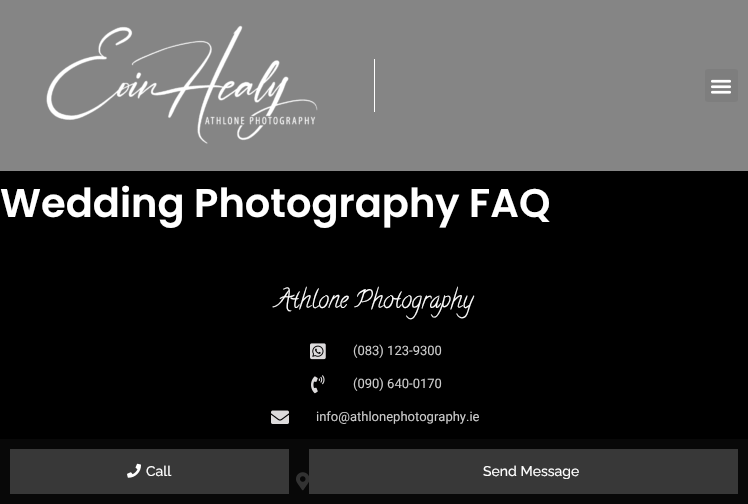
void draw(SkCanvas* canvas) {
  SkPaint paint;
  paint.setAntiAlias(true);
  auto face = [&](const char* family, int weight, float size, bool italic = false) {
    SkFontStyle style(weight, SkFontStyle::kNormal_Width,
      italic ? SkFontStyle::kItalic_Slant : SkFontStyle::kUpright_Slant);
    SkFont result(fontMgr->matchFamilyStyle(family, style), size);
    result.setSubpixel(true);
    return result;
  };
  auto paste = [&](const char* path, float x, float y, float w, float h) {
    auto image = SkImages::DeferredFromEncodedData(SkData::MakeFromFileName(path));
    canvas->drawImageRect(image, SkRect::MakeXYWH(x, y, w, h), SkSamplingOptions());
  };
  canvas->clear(0xff000000);
  paint.setColor(0xff858585);
  canvas->drawRect(SkRect::MakeXYWH(0, 0, 748, 171), paint);
  paste("img/1.png", 46, 25, 272, 119);
  paint.setColor(0xffffffff);
  canvas->drawRect(SkRect::MakeXYWH(374, 59, 1, 53), paint);
  paint.setColor(0xff7e7e7e);
  canvas->drawRoundRect(SkRect::MakeXYWH(705, 69, 33, 33), 3, 3, paint);
  paste("img/2.png", 711, 79, 20, 15);
  paint.setColor(0xff080808);
  canvas->drawRect(SkRect::MakeXYWH(0, 439, 748, 65), paint);
  paste("img/3.png", 310, 343, 16, 17);
  paste("img/4.png", 311, 375, 14, 19);
  paste("img/5.png", 271, 410, 18, 14);
  paste("img/6.png", 296, 472, 13, 19);
  paint.setColor(0xff383838);
  canvas->drawRect(SkRect::MakeXYWH(10, 449, 279, 45), paint);
  paste("img/7.png", 127, 463, 14, 15);
  canvas->drawRect(SkRect::MakeXYWH(309, 449, 429, 45), paint);
  auto f0 = face("Poppins", 600, 40);
  paint.setColor(0xffffffff);
  canvas->drawString("Wedding Photography FAQ", 0, 217, f0, paint);
  auto f1 = face("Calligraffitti", 400, 24);
  canvas->drawString("Athlone Photography", 276, 307, f1, paint);
  auto f2 = face("Roboto", 400, 13);
  paint.setColor(0xffcccccc);
  {
    const struct { const char* s; float x, y; } items[] = {
      {"(083) 123-9300", 353, 355},
      {"(090) 640-0170", 353, 388},
      {"info@athlonephotography.ie", 316, 421},
    };
    for (auto [s, x, y] : items) {
      canvas->drawString(s, x, y, f2, paint);
    }
  }
  auto f3 = face("Raleway", 500, 14);
  paint.setColor(0xffffffff);
  canvas->drawString("Call", 146, 476, f3, paint);
  canvas->drawString("Send Message", 483, 476, f3, paint);
}
